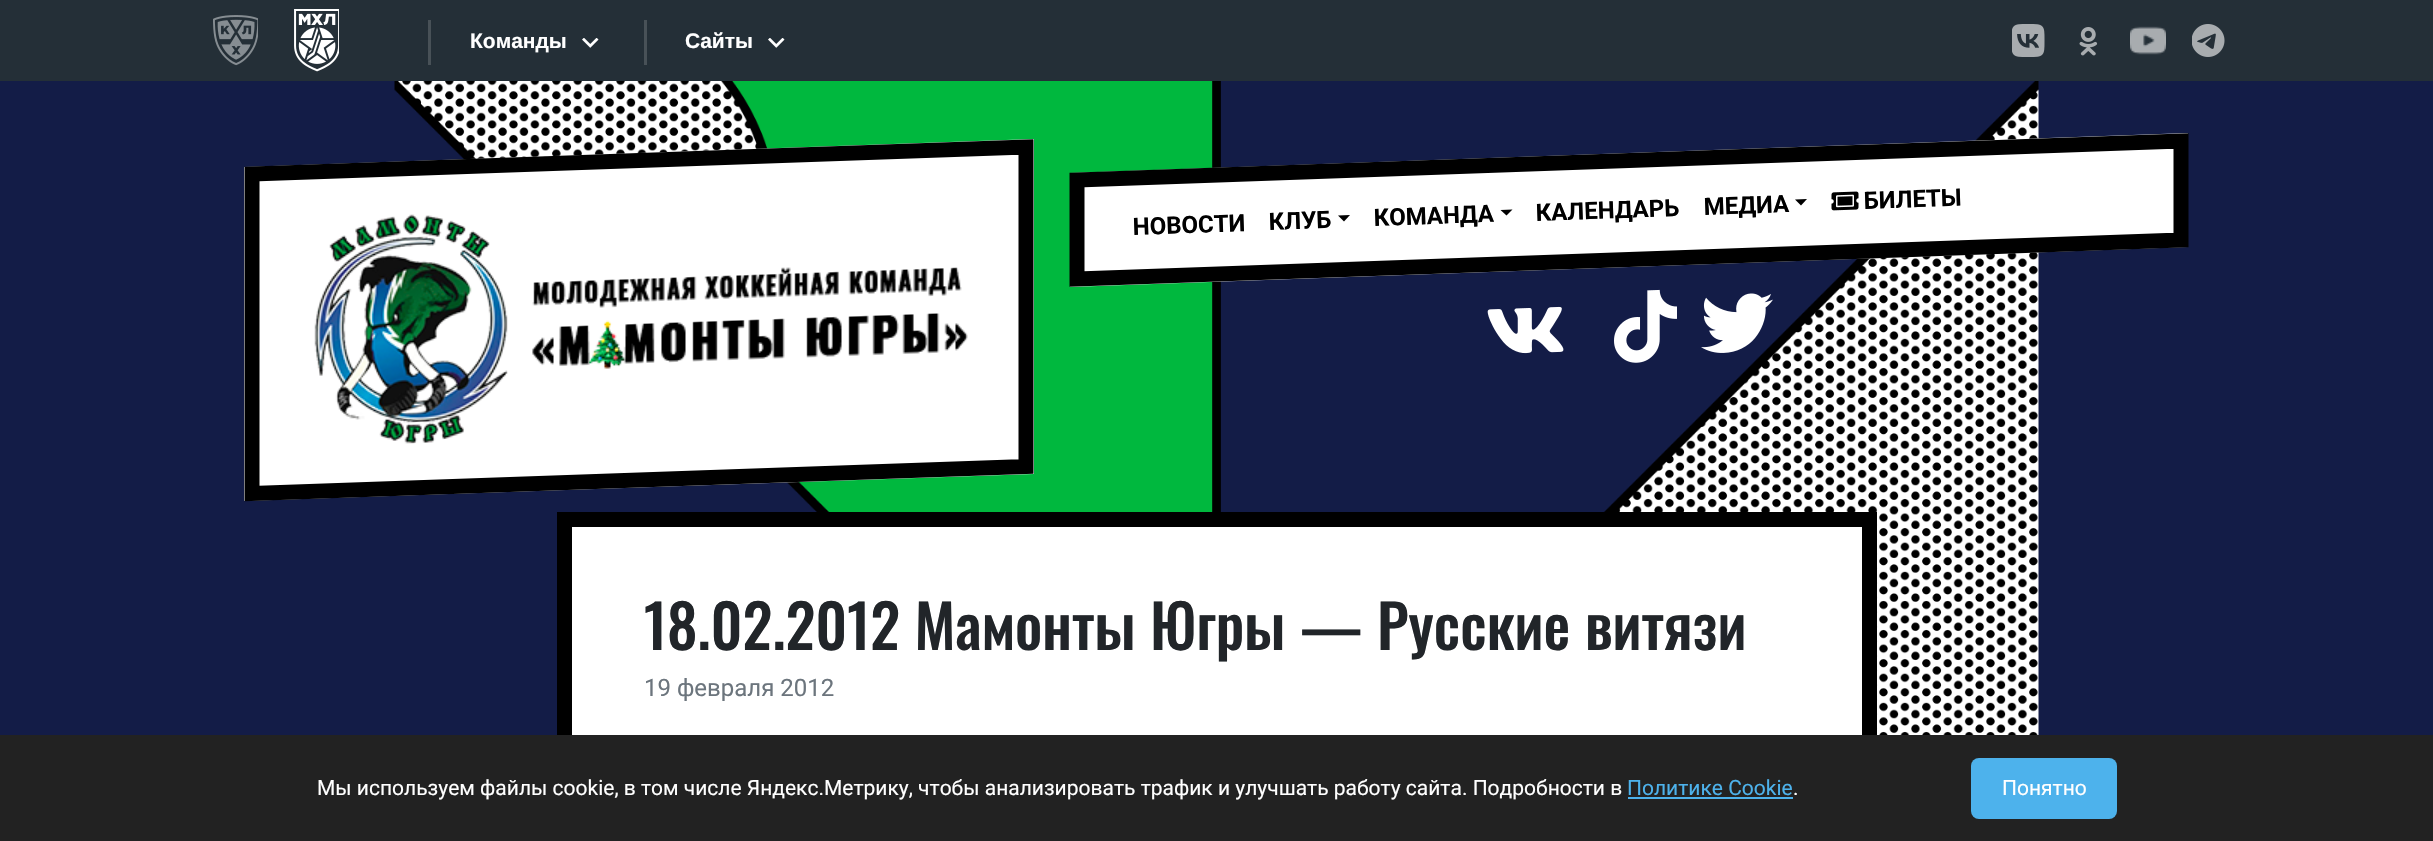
void draw(SkCanvas* canvas) {
  SkPaint paint;
  paint.setAntiAlias(true);
  auto face = [&](const char* family, int weight, float size, bool italic = false) {
    SkFontStyle style(weight, SkFontStyle::kNormal_Width,
      italic ? SkFontStyle::kItalic_Slant : SkFontStyle::kUpright_Slant);
    SkFont result(fontMgr->matchFamilyStyle(family, style), size);
    result.setSubpixel(true);
    return result;
  };
  auto paste = [&](const char* path, float x, float y, float w, float h) {
    auto image = SkImages::DeferredFromEncodedData(SkData::MakeFromFileName(path));
    canvas->drawImageRect(image, SkRect::MakeXYWH(x, y, w, h), SkSamplingOptions());
  };
  auto shape = [&](const char* data, bool evenOdd = false) {
    SkPath result = *SkParsePath::FromSVGString(data);
    if (evenOdd) result.setFillType(SkPathFillType::kEvenOdd);
    return result;
  };
  canvas->clear(0xff131c47);
  paint.setColor(0xff242f37);
  canvas->drawRect(SkRect::MakeXYWH(0, 0, 2433, 81), paint);
  paste("img/1.png", 213, 15, 45, 51);
  paste("img/2.png", 294, 9, 45, 63);
  paint.setColor(0xff485157);
  canvas->drawRect(SkRect::MakeXYWH(428, 20, 3, 45), paint);
  paste("img/3.png", 582, 38, 17, 10);
  canvas->drawRect(SkRect::MakeXYWH(644, 20, 3, 45), paint);
  paste("img/3.png", 768, 38, 17, 10);
  paste("img/4.png", 2012, 24, 33, 33);
  paste("img/5.png", 2079, 27, 19, 29);
  paste("img/6.png", 2130, 26, 36, 29);
  paste("img/7.png", 2192, 24, 33, 33);
  paste("img/8.png", 394, 81, 1645, 654);
  paint.setColor(0xffffffff);
  canvas->drawPath(shape("M244 167L1034 139V474L244 501Z"), paint);
  paint.setStroke(true);
  paint.setStrokeWidth(15);
  paint.setColor(0xff000000);
  canvas->drawPath(shape("M252 174L1026 147V466.5L252 493.5Z"), paint);
  paste("img/9.png", 314, 214, 654, 230);
  paint.setStroke(false);
  paint.setColor(0xffffffff);
  canvas->drawPath(shape("M1070 173L2188 133V247L1070 287Z"), paint);
  paint.setStroke(true);
  paint.setColor(0xff000000);
  canvas->drawPath(shape("M1077 180L2181 141V240L1077 279Z"), paint);
  paint.setStroke(false);
  canvas->drawPath(shape("M1338 215.5L1350 215L1344 221.5Z"), paint);
  canvas->drawPath(shape("M1500.5 210L1512.5 209.5L1506.5 215.5Z"), paint);
  canvas->drawPath(shape("M1795 199.5L1807 199L1801 205.5Z"), paint);
  paste("img/10.png", 1831, 191, 28, 20);
  paste("img/11.png", 1487, 306, 77, 48);
  paste("img/12.png", 1614, 289, 63, 74);
  paste("img/13.png", 1701, 293, 72, 60);
  paint.setColor(0xffffffff);
  canvas->drawRect(SkRect::MakeXYWH(572, 527, 1290, 208), paint);
  paint.setStroke(true);
  paint.setColor(0xff000000);
  canvas->drawRect(SkRect::MakeXYWH(564.5f, 519.5f, 1305, 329), paint);
  paint.setStroke(false);
  paint.setColor(0xff222222);
  canvas->drawRect(SkRect::MakeXYWH(0, 735, 2433, 106), paint);
  paint.setColor(0xff4db2ec);
  canvas->drawRect(SkRect::MakeXYWH(1628, 797, 165, 2), paint);
  canvas->drawRoundRect(SkRect::MakeXYWH(1971, 758, 146, 61), 8, 8, paint);
  auto f0 = face("Liberation Sans", 700, 21);
  paint.setColor(0xffffffff);
  canvas->drawString("Команды", 470, 48, f0, paint);
  canvas->drawString("Сайты", 685, 48, f0, paint);
  auto f1 = face("Roboto", 700, 24);
  paint.setColor(0xff000000);
  canvas->save();
  canvas->rotate(-2, 1133, 235);
  canvas->drawString("НОВОСТИ", 1133, 235, f1, paint);
  canvas->restore();
  canvas->save();
  canvas->rotate(-2, 1269, 230);
  canvas->drawString("КЛУБ", 1269, 230, f1, paint);
  canvas->restore();
  canvas->save();
  canvas->rotate(-2, 1374, 226);
  canvas->drawString("КОМАНДА", 1374, 226, f1, paint);
  canvas->restore();
  canvas->save();
  canvas->rotate(-2, 1536, 221);
  canvas->drawString("КАЛЕНДАРЬ", 1536, 221, f1, paint);
  canvas->restore();
  canvas->save();
  canvas->rotate(-2, 1704, 215);
  canvas->drawString("МЕДИА", 1704, 215, f1, paint);
  canvas->restore();
  canvas->save();
  canvas->rotate(-2, 1864, 209);
  canvas->drawString("БИЛЕТЫ", 1864, 209, f1, paint);
  canvas->restore();
  auto f2 = face("Oswald", 500, 60);
  paint.setColor(0xff212529);
  canvas->drawString("18.02.2012 Мамонты Югры — Русские витязи", 644, 650, f2, paint);
  auto f3 = face("Roboto", 400, 24);
  paint.setColor(0xff6c757d);
  canvas->drawString("19 февраля 2012", 644, 696, f3, paint);
  auto f4 = face("Roboto", 400, 21);
  paint.setColor(0xffffffff);
  canvas->drawString("Мы используем файлы cookie, в том числе Яндекс.Метрику, чтобы анализировать трафик и улучшать работу сайта. Подробности в", 317, 795, f4, paint);
  paint.setColor(0xff4db2ec);
  canvas->drawString("Политике Cookie", 1627, 795, f4, paint);
  paint.setColor(0xffffffff);
  canvas->drawString(".", 1793, 795, f4, paint);
  canvas->drawString("Понятно", 2002, 795, f4, paint);
}
